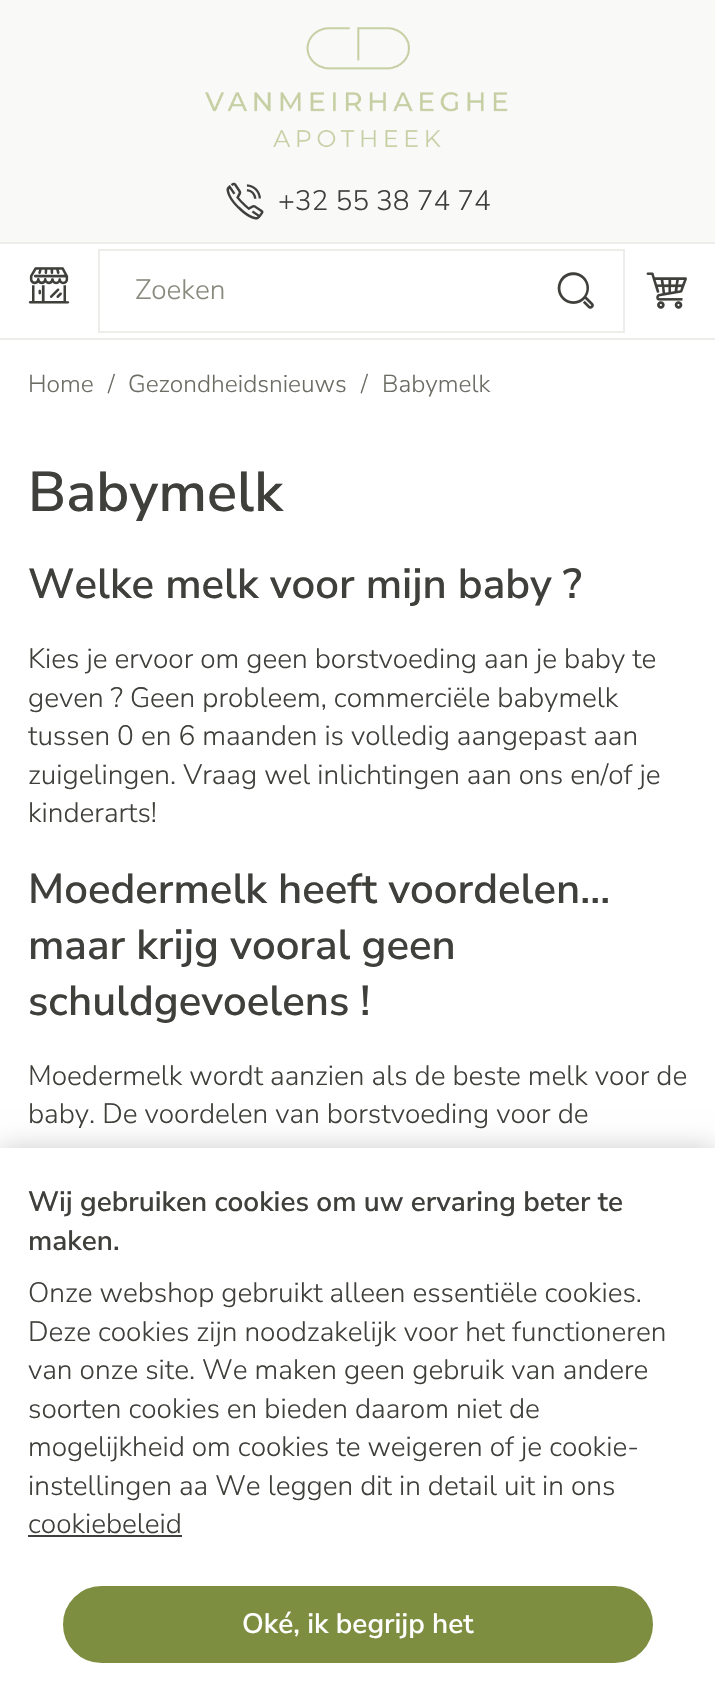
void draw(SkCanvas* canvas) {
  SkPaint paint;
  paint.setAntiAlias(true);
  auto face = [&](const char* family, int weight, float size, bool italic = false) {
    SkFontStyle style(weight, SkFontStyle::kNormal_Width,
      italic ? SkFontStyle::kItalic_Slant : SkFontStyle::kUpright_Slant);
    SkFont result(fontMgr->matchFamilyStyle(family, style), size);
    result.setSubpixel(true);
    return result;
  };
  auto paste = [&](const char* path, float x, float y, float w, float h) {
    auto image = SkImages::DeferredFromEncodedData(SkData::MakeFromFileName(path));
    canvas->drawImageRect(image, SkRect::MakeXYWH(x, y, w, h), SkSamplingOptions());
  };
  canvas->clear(0xffffffff);
  paint.setColor(0xfff9f9f8);
  canvas->drawRect(SkRect::MakeXYWH(0, 0, 715, 242), paint);
  paste("img/1.png", 205, 27, 303, 121);
  paste("img/2.png", 226, 182, 38, 38);
  paint.setColor(0xffedeee9);
  canvas->drawRect(SkRect::MakeXYWH(0, 242, 715, 2), paint);
  canvas->drawRect(SkRect::MakeXYWH(0, 338, 715, 2), paint);
  paste("img/3.png", 28, 267, 42, 37);
  paint.setStroke(true);
  paint.setStrokeWidth(2);
  canvas->drawRect(SkRect::MakeXYWH(99, 250, 525, 82), paint);
  paste("img/4.png", 557, 272, 37, 37);
  paste("img/5.png", 646, 272, 41, 37);
  paint.setStroke(false);
  paint.setColor(0x33000000);
  paint.setMaskFilter(SkMaskFilter::MakeBlur(kNormal_SkBlurStyle, 13));
  canvas->drawRect(SkRect::MakeXYWH(0, 1148, 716, 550), paint);
  paint.setMaskFilter(nullptr);
  paint.setColor(0xffffffff);
  canvas->drawRect(SkRect::MakeXYWH(0, 1148, 715, 548), paint);
  paint.setColor(0xff3f403b);
  canvas->drawRect(SkRect::MakeXYWH(28, 1535, 154, 2), paint);
  paint.setColor(0xff7d8e41);
  canvas->drawRoundRect(SkRect::MakeXYWH(64, 1587, 588, 75), 37.5f, 37.5f, paint);
  paint.setStroke(true);
  canvas->drawRoundRect(SkRect::MakeXYWH(64, 1587, 588, 75), 37.5f, 37.5f, paint);
  auto f0 = face("Nunito Sans", 300, 28);
  paint.setStroke(false);
  paint.setColor(0xff3f403b);
  canvas->drawString("+32 55 38 74 74", 278, 210, f0, paint);
  paint.setColor(0xff888a7e);
  canvas->drawString("Zoeken", 135, 299, f0, paint);
  auto f1 = face("Nunito Sans", 300, 24.5f);
  paint.setColor(0xff6b6d64);
  {
    const struct { const char* s; float x, y; } items[] = {
      {"Home", 28, 392},
      {"/", 108, 392},
      {"Gezondheidsnieuws", 128, 392},
      {"/", 361, 392},
      {"Babymelk", 382, 392},
    };
    for (auto [s, x, y] : items) {
      canvas->drawString(s, x, y, f1, paint);
    }
  }
  auto f2 = face("Nunito Sans", 600, 56);
  paint.setColor(0xff3f403b);
  canvas->drawString("Babymelk", 28, 511, f2, paint);
  auto f3 = face("Nunito Sans", 600, 42);
  canvas->drawString("Welke melk voor mijn baby ?", 28, 598, f3, paint);
  {
    const struct { const char* s; float x, y; } items[] = {
      {"Kies je ervoor om geen borstvoeding aan je baby te", 28, 668},
      {"geven ? Geen probleem, commerciële babymelk", 28, 707},
      {"tussen 0 en 6 maanden is volledig aangepast aan", 28, 745},
      {"zuigelingen. Vraag wel inlichtingen aan ons en/of je", 28, 784},
      {"kinderarts!", 28, 822},
    };
    for (auto [s, x, y] : items) {
      canvas->drawString(s, x, y, f0, paint);
    }
  }
  {
    const struct { const char* s; float x, y; } items[] = {
      {"Moedermelk heeft voordelen…", 28, 903},
      {"maar krijg vooral geen", 28, 959},
      {"schuldgevoelens !", 28, 1015},
    };
    for (auto [s, x, y] : items) {
      canvas->drawString(s, x, y, f3, paint);
    }
  }
  canvas->drawString("Moedermelk wordt aanzien als de beste melk voor de", 28, 1085, f0, paint);
  canvas->drawString("baby. De voordelen van borstvoeding voor de", 28, 1123, f0, paint);
  auto f4 = face("Nunito Sans", 600, 28);
  canvas->drawString("Wij gebruiken cookies om uw ervaring beter te", 28, 1211, f4, paint);
  canvas->drawString("maken.", 28, 1250, f4, paint);
  {
    const struct { const char* s; float x, y; } items[] = {
      {"Onze webshop gebruikt alleen essentiële cookies.", 28, 1302},
      {"Deze cookies zijn noodzakelijk voor het functioneren", 28, 1341},
      {"van onze site. We maken geen gebruik van andere", 28, 1379},
      {"soorten cookies en bieden daarom niet de", 28, 1418},
      {"mogelijkheid om cookies te weigeren of je cookie-", 28, 1456},
      {"instellingen aa We leggen dit in detail uit in ons", 28, 1495},
      {"cookiebeleid", 28, 1533},
    };
    for (auto [s, x, y] : items) {
      canvas->drawString(s, x, y, f0, paint);
    }
  }
  paint.setColor(0xffffffff);
  canvas->drawString("Oké, ik begrijp het", 242, 1633, f4, paint);
}
